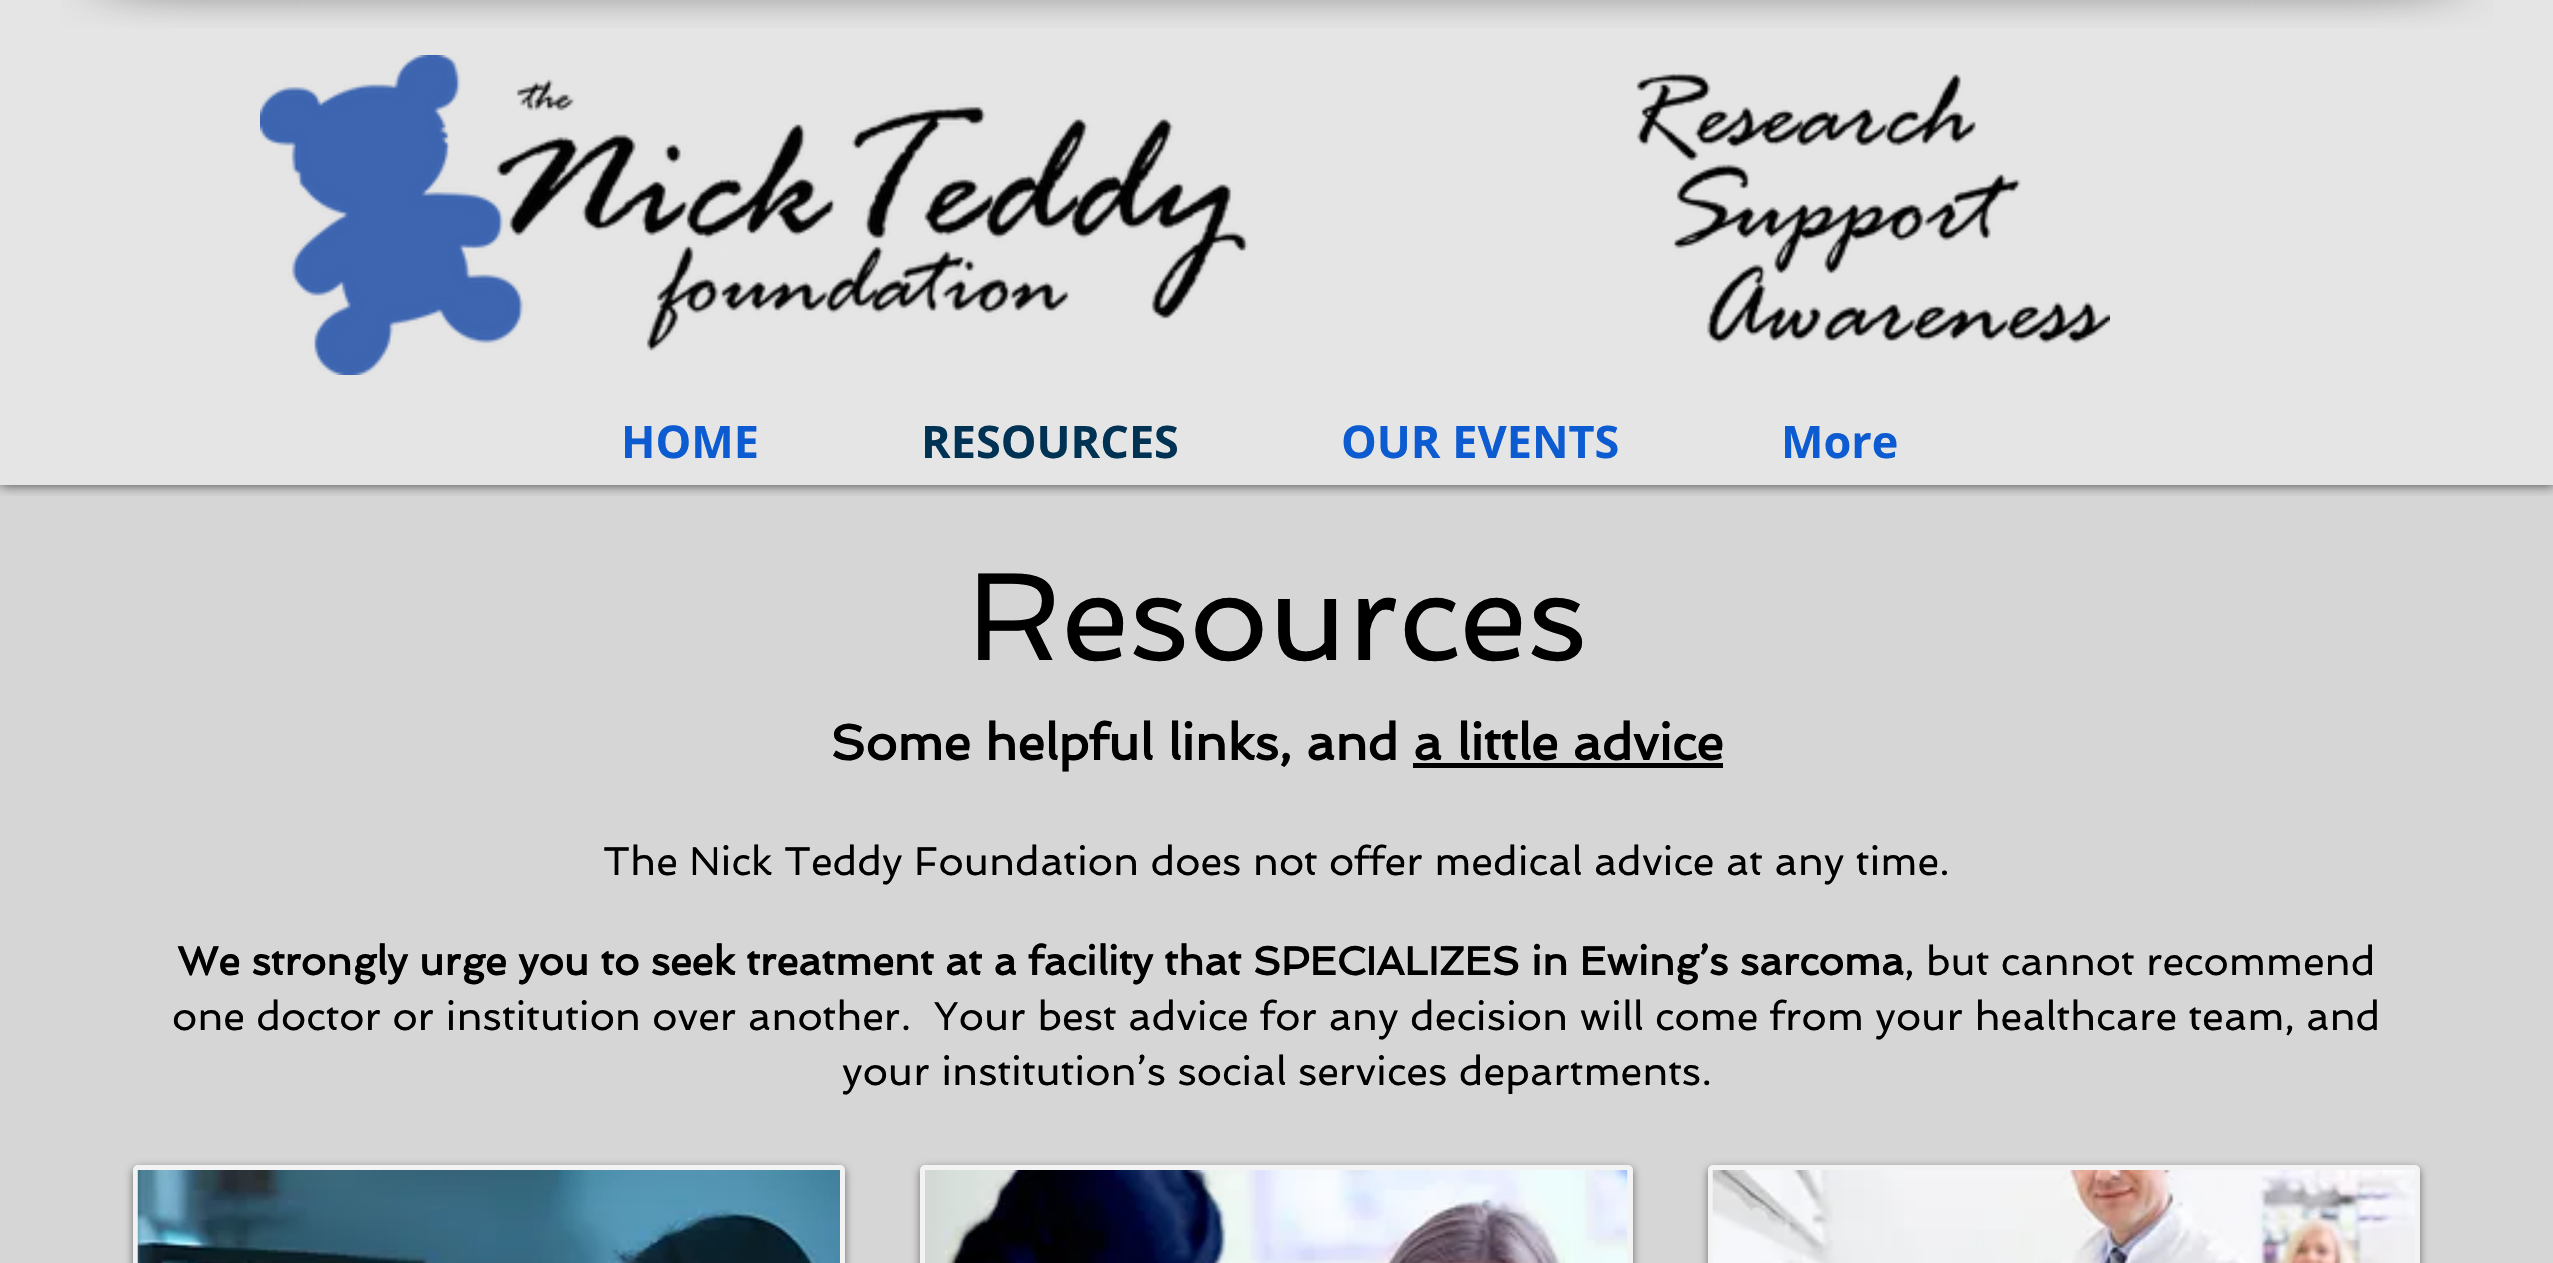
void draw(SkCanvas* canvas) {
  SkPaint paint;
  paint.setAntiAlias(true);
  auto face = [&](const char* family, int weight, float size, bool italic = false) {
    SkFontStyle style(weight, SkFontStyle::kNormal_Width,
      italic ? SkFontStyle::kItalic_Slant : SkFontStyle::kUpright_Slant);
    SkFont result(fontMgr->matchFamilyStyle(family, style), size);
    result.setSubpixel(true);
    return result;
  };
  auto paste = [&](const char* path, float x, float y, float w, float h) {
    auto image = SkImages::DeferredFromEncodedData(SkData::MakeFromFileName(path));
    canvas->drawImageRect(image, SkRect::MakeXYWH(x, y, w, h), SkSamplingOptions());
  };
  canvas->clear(0xffd6d6d6);
  paint.setColor(0xffe5e5e5);
  canvas->drawRect(SkRect::MakeXYWH(0, 0, 2553, 485), paint);
  paste("img/1.png", 61, 0, 242, 28);
  paste("img/2.png", 302, 0, 1951, 28);
  paste("img/3.png", 2252, 0, 242, 28);
  canvas->save();
  canvas->clipRect(SkRect::MakeXYWH(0, 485, 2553, 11));
  paint.setColor(0xb3000000);
  paint.setMaskFilter(SkMaskFilter::MakeBlur(kNormal_SkBlurStyle, 6));
  canvas->drawRect(SkRect::MakeXYWH(0, 0, 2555, 485), paint);
  paint.setMaskFilter(nullptr);
  canvas->restore();
  paste("img/4.png", 260, 55, 988, 320);
  paste("img/5.png", 1636, 72, 474, 272);
  paint.setColor(0xff000000);
  canvas->drawRect(SkRect::MakeXYWH(1413, 763, 310, 5), paint);
  paint.setColor(0x80000000);
  paint.setMaskFilter(SkMaskFilter::MakeBlur(kNormal_SkBlurStyle, 4));
  canvas->drawRoundRect(SkRect::MakeXYWH(133, 1168, 712, 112), 5, 5, paint);
  paint.setMaskFilter(nullptr);
  paint.setStroke(true);
  paint.setStrokeWidth(5);
  paint.setColor(0xfff3f3f3);
  canvas->drawRoundRect(SkRect::MakeXYWH(135.5f, 1167.5f, 707, 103), 2.5f, 2.5f, paint);
  paste("img/6.png", 137, 1170, 703, 93);
  paint.setStroke(false);
  paint.setColor(0x80000000);
  paint.setMaskFilter(SkMaskFilter::MakeBlur(kNormal_SkBlurStyle, 4));
  canvas->drawRoundRect(SkRect::MakeXYWH(920, 1168, 713, 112), 5, 5, paint);
  paint.setMaskFilter(nullptr);
  paint.setColor(0xfff3f3f3);
  canvas->drawRoundRect(SkRect::MakeXYWH(922.5f, 1167.5f, 708, 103), 2.5f, 2.5f, paint);
  paint.setStroke(true);
  canvas->drawRoundRect(SkRect::MakeXYWH(922.5f, 1167.5f, 708, 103), 2.5f, 2.5f, paint);
  paste("img/7.png", 925, 1170, 703, 93);
  paint.setStroke(false);
  paint.setColor(0x80000000);
  paint.setMaskFilter(SkMaskFilter::MakeBlur(kNormal_SkBlurStyle, 4));
  canvas->drawRoundRect(SkRect::MakeXYWH(1708, 1168, 712, 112), 5, 5, paint);
  paint.setMaskFilter(nullptr);
  paint.setStroke(true);
  paint.setColor(0xfff3f3f3);
  canvas->drawRoundRect(SkRect::MakeXYWH(1710.5f, 1167.5f, 707, 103), 2.5f, 2.5f, paint);
  paste("img/8.png", 1712, 1170, 703, 93);
  auto f0 = face("Open Sans", 700, 45);
  paint.setStroke(false);
  paint.setColor(0xff0d5bd1);
  canvas->drawString("HOME", 621, 458, f0, paint);
  paint.setColor(0xff003254);
  canvas->drawString("RESOURCES", 921, 458, f0, paint);
  paint.setColor(0xff0d5bd1);
  canvas->drawString("OUR EVENTS", 1341, 458, f0, paint);
  canvas->drawString("More", 1781, 458, f0, paint);
  auto f1 = face("Spinnaker", 400, 125);
  paint.setColor(0xff000000);
  canvas->drawString("Resources", 967, 660, f1, paint);
  auto f2 = face("Spinnaker", 700, 50);
  canvas->drawString("Some helpful links, and a little advice", 830, 760, f2, paint);
  auto f3 = face("Spinnaker", 400, 40);
  canvas->drawString("The Nick Teddy Foundation does not offer medical advice at any time.", 603, 875, f3, paint);
  auto f4 = face("Spinnaker", 700, 40);
  canvas->drawString("We strongly urge you to seek treatment at a facility that SPECIALIZES in Ewing’s sarcoma", 177, 975, f4, paint);
  {
    const struct { const char* s; float x, y; } items[] = {
      {", but cannot recommend", 1904, 975},
      {"one doctor or institution over another.  Your best advice for any decision will come from your healthcare team, and", 172, 1030},
      {"your institution’s social services departments.", 842, 1085},
    };
    for (auto [s, x, y] : items) {
      canvas->drawString(s, x, y, f3, paint);
    }
  }
}
